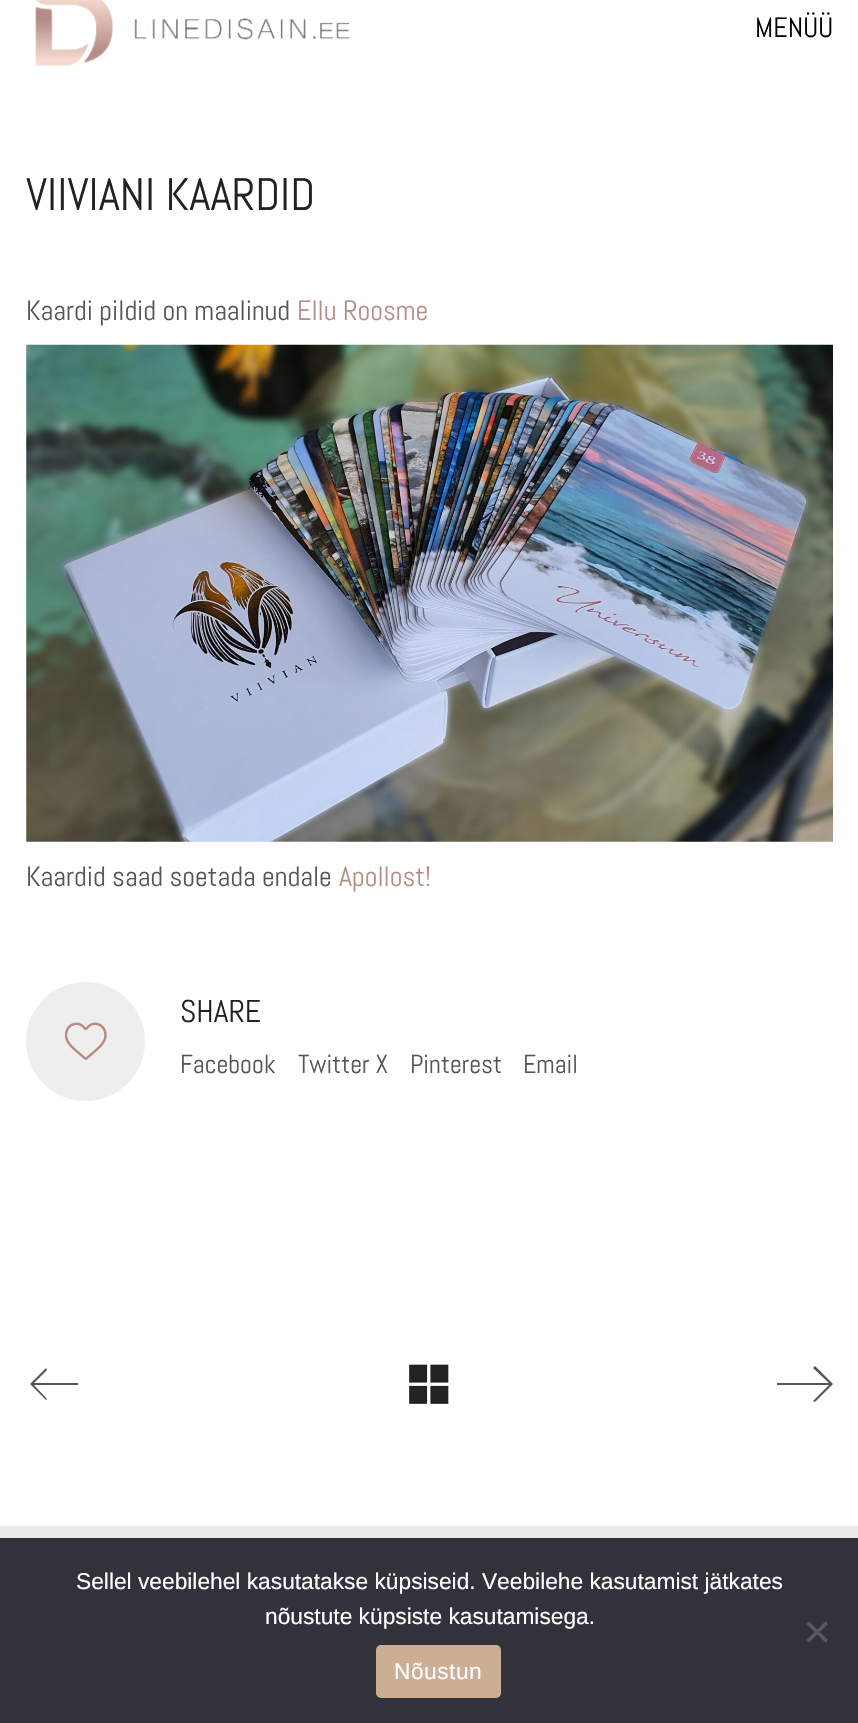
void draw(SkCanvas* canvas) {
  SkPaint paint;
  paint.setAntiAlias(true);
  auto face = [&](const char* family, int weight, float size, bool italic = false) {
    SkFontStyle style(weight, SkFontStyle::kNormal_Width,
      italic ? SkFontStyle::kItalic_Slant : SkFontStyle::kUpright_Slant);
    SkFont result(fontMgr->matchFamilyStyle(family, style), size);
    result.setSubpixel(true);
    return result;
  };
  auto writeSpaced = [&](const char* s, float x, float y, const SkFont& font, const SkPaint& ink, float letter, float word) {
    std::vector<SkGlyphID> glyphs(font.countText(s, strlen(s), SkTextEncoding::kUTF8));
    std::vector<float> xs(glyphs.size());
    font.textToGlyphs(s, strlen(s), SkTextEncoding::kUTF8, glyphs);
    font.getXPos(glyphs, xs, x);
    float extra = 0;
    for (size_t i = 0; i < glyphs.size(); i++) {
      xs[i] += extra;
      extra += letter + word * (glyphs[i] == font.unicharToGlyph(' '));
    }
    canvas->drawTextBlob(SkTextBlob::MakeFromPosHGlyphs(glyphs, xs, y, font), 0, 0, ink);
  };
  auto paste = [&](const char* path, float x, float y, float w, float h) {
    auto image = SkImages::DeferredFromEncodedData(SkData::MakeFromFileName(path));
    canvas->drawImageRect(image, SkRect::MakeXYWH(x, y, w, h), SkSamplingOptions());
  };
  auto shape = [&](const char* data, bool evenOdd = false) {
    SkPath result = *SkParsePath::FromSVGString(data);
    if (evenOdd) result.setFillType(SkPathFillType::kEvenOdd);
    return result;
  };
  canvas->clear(0xffffffff);
  paste("img/1.png", 35, 0, 315, 66);
  paste("img/2.png", 26, 344, 807, 498);
  paint.setColor(0xffeeeeee);
  canvas->drawCircle(85.5f, 1041.5f, 59.5f, paint);
  paste("img/3.png", 65, 1022, 42, 38);
  paint.setColor(0xff555555);
  canvas->drawPath(shape("M78 1383H34L47 1370L46 1368L30 1384L46 1400L47 1399L34 1385H78Z"), paint);
  paste("img/4.png", 409, 1364, 40, 40);
  canvas->drawPath(shape("M815 1366L813 1368L829 1383H777V1385H829L813 1401L815 1402L833 1384Z"), paint);
  paint.setColor(0xffeaeaea);
  canvas->drawRect(SkRect::MakeXYWH(0, 1526, 858, 12), paint);
  paint.setColor(0xff32323a);
  canvas->drawRect(SkRect::MakeXYWH(0, 1538, 858, 185), paint);
  paint.setColor(0xff59595d);
  canvas->drawPath(shape("M825.5 1621.5L828 1624L809 1642.5L806.5 1640Z"), paint);
  canvas->drawPath(shape("M806.5 1624L809 1621.5L828 1640L825.5 1642.5Z"), paint);
  paint.setColor(0xffccae94);
  canvas->drawRoundRect(SkRect::MakeXYWH(376, 1645, 125, 53), 5, 5, paint);
  auto f0 = face("Abel", 400, 28);
  paint.setColor(0xff000000);
  canvas->drawString("MENÜÜ", 755, 37, f0, paint);
  auto f1 = face("Abel", 400, 45.5f);
  paint.setColor(0xff222222);
  canvas->drawString("VIIVIANI KAARDID", 26, 210, f1, paint);
  paint.setColor(0xff555555);
  canvas->drawString("Kaardi pildid on maalinud", 26, 320, f0, paint);
  paint.setColor(0xffb58d85);
  canvas->drawString("Ellu Roosme", 297, 320, f0, paint);
  paint.setColor(0xff555555);
  canvas->drawString("Kaardid saad soetada endale", 26, 886, f0, paint);
  paint.setColor(0xffb58d85);
  canvas->drawString("Apollost!", 339, 886, f0, paint);
  auto f2 = face("Abel", 400, 31.5f);
  paint.setColor(0xff222222);
  canvas->drawString("SHARE", 180, 1022, f2, paint);
  auto f3 = face("Abel", 400, 26);
  paint.setColor(0xff555555);
  {
    const struct { const char* s; float x, y; } items[] = {
      {"Facebook", 180, 1073},
      {"Twitter X", 298, 1073},
      {"Pinterest", 410, 1073},
      {"Email", 523, 1073},
    };
    for (auto [s, x, y] : items) {
      canvas->drawString(s, x, y, f3, paint);
    }
  }
  auto f4 = face("Liberation Sans", 400, 22.75f);
  paint.setColor(0xffffffff);
  canvas->drawString("Sellel veebilehel kasutatakse küpsiseid. Veebilehe kasutamist jätkates", 76, 1589, f4, paint);
  canvas->drawString("nõustute küpsiste kasutamisega.", 265, 1624, f4, paint);
  writeSpaced("Nõustun", 394, 1679, f4, paint, 0.5f, 0);
}
